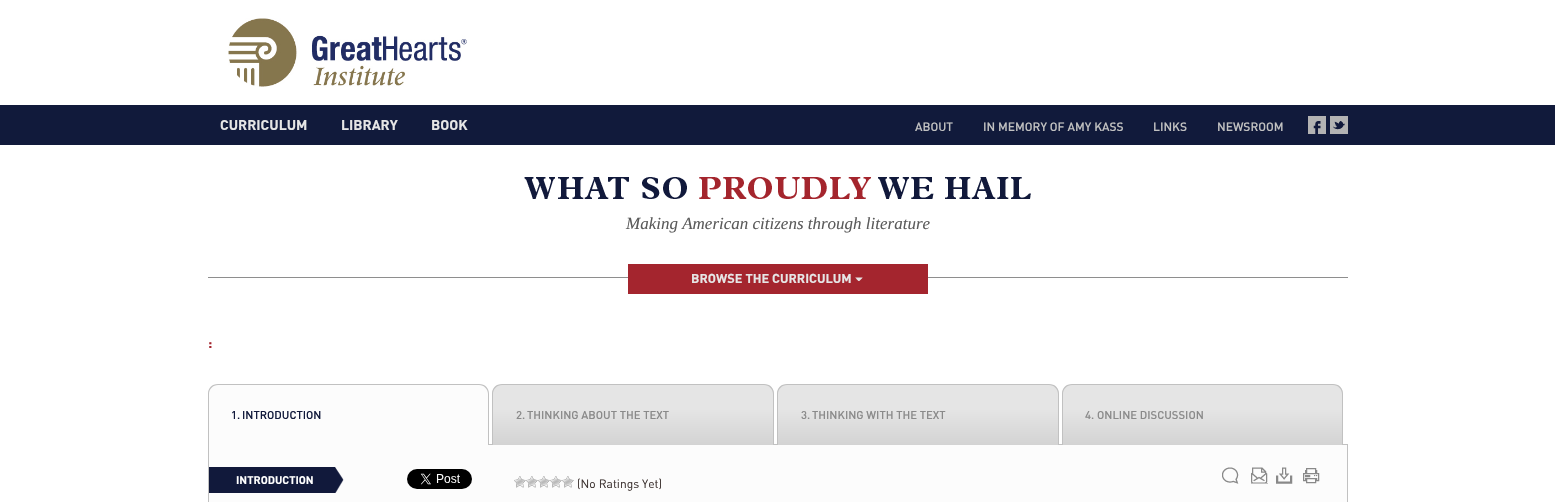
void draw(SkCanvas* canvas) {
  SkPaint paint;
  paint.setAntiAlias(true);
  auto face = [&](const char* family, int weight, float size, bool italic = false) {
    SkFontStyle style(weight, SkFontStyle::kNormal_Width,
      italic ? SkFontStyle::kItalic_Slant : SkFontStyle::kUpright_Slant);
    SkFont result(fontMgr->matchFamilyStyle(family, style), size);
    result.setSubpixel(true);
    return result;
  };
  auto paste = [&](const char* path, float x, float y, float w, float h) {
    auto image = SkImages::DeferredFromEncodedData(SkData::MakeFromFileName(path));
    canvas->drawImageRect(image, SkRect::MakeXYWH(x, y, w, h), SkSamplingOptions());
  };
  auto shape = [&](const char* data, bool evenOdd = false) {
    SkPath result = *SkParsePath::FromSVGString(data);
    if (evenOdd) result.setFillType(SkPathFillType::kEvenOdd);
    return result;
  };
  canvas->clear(0xffffffff);
  paste("img/1.png", 228, 18, 239, 69);
  paint.setColor(0xff111a3b);
  canvas->drawRect(SkRect::MakeXYWH(0, 105, 1555, 40), paint);
  paste("img/2.png", 1308, 116, 18, 18);
  paste("img/3.png", 1330, 116, 18, 18);
  paste("img/4.png", 524, 177, 507, 22);
  paint.setColor(0xff8e8e8e);
  canvas->drawRect(SkRect::MakeXYWH(208, 277, 1140, 1), paint);
  paint.setColor(0xffa4252e);
  canvas->drawRect(SkRect::MakeXYWH(628, 264, 300, 30), paint);
  paste("img/5.png", 855, 277, 8, 4);
  paint.setColor(0xfffcfcfc);
  canvas->drawRect(SkRect::MakeXYWH(208.5f, 444.5f, 1139, 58), paint);
  paint.setStroke(true);
  paint.setStrokeWidth(1);
  paint.setColor(0xffc1c1c1);
  canvas->drawRect(SkRect::MakeXYWH(208.5f, 444.5f, 1139, 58), paint);
  paint.setStroke(false);
  paint.setColor(0xfffcfcfc);
  canvas->drawPath(shape("M218 384H479C484.5 384 489 388.5 489 394V445H208V394C208 388.5 212.5 384 218 384Z"), paint);
  paint.setColor(0xffc1c1c1);
  canvas->drawPath(shape("M218 384H479C485 384 489 388 489 394V445H208V394C208 388 212 384 218 384ZM218 385H479C484 385 488 389 488 394V445H209V394C209 389 213 385 218 385Z", true), paint);
  canvas->save();
  canvas->clipPath(shape("M502 384H764C769.5 384 774 388.5 774 394V445H492V394C492 388.5 496.5 384 502 384Z"), true);
  {
    const SkColor colors[] = {0xffe5e5e5, 0xffe5e5e5, 0xffd3d3d3};
    const float stops[] = {0, 0.4f, 1};
    const SkPoint ends[] = {{633, 385}, {633, 445}};
    paint.setShader(SkGradientShader::MakeLinear(ends, colors, stops, 3, SkTileMode::kClamp));
    paint.setAlpha(255);
  }
  canvas->drawRect(SkRect::MakeXYWH(492, 385, 282, 60), paint);
  canvas->restore();
  paint.setShader(nullptr);
  paint.setColor(0xffc1c1c1);
  canvas->drawPath(shape("M502 384H764C770 384 774 388 774 394V445H492V394C492 388 496 384 502 384ZM502 385H764C769 385 773 389 773 394V445H493V394C493 389 497 385 502 385Z", true), paint);
  canvas->save();
  canvas->clipPath(shape("M787 384H1049C1054.5 384 1059 388.5 1059 394V445H777V394C777 388.5 781.5 384 787 384Z"), true);
  {
    const SkColor colors[] = {0xffe5e5e5, 0xffe5e5e5, 0xffd3d3d3};
    const float stops[] = {0, 0.4f, 1};
    const SkPoint ends[] = {{918, 385}, {918, 445}};
    paint.setShader(SkGradientShader::MakeLinear(ends, colors, stops, 3, SkTileMode::kClamp));
    paint.setAlpha(255);
  }
  canvas->drawRect(SkRect::MakeXYWH(777, 385, 282, 60), paint);
  canvas->restore();
  paint.setShader(nullptr);
  paint.setColor(0xffc1c1c1);
  canvas->drawPath(shape("M787 384H1049C1055 384 1059 388 1059 394V445H777V394C777 388 781 384 787 384ZM787 385H1049C1054 385 1058 389 1058 394V445H778V394C778 389 782 385 787 385Z", true), paint);
  canvas->save();
  canvas->clipPath(shape("M1072 384H1333C1338.5 384 1343 388.5 1343 394V445H1062V394C1062 388.5 1066.5 384 1072 384Z"), true);
  {
    const SkColor colors[] = {0xffe5e5e5, 0xffe5e5e5, 0xffd3d3d3};
    const float stops[] = {0, 0.4f, 1};
    const SkPoint ends[] = {{1203, 385}, {1203, 445}};
    paint.setShader(SkGradientShader::MakeLinear(ends, colors, stops, 3, SkTileMode::kClamp));
    paint.setAlpha(255);
  }
  canvas->drawRect(SkRect::MakeXYWH(1062, 385, 281, 60), paint);
  canvas->restore();
  paint.setShader(nullptr);
  paint.setColor(0xffc1c1c1);
  canvas->drawPath(shape("M1072 384H1333C1339 384 1343 388 1343 394V445H1062V394C1062 388 1066 384 1072 384ZM1072 385H1333C1338 385 1342 389 1342 394V445H1063V394C1063 389 1067 385 1072 385Z", true), paint);
  paint.setColor(0xff11193b);
  canvas->drawRect(SkRect::MakeXYWH(209, 467, 135, 26), paint);
  paste("img/6.png", 335, 467, 10, 26);
  paste("img/7.png", 407, 469, 65, 20);
  paste("img/8.png", 514, 476, 12, 12);
  paste("img/8.png", 526, 476, 12, 12);
  paste("img/8.png", 538, 476, 12, 12);
  paste("img/8.png", 550, 476, 12, 12);
  paste("img/8.png", 562, 476, 12, 12);
  paste("img/9.png", 1222, 467, 17, 17);
  paste("img/10.png", 1251, 467, 17, 16);
  paint.setColor(0xffc1c1c1);
  canvas->drawRect(SkRect::MakeXYWH(1251, 483, 17, 1), paint);
  paste("img/11.png", 1276, 467, 17, 17);
  paste("img/12.png", 1303, 468, 17, 16);
  auto f0 = face("DIN", 700, 14);
  paint.setColor(0xffe6e6e6);
  {
    const struct { const char* s; float x, y; } items[] = {
      {"CURRICULUM", 220, 130},
      {"LIBRARY", 341, 130},
      {"BOOK", 431, 130},
    };
    for (auto [s, x, y] : items) {
      canvas->drawString(s, x, y, f0, paint);
    }
  }
  auto f1 = face("DIN", 500, 12);
  paint.setColor(0xffc1c1c1);
  {
    const struct { const char* s; float x, y; } items[] = {
      {"ABOUT", 915, 131},
      {"IN MEMORY OF AMY KASS", 983, 131},
      {"LINKS", 1153, 131},
      {"NEWSROOM", 1217, 131},
    };
    for (auto [s, x, y] : items) {
      canvas->drawString(s, x, y, f1, paint);
    }
  }
  auto f2 = face("Liberation Serif", 400, 17, true);
  paint.setColor(0xff5b5b5b);
  canvas->drawString("Making American citizens through literature", 626, 229, f2, paint);
  auto f3 = face("DIN", 700, 12.75f);
  paint.setColor(0xffe6e6e6);
  canvas->drawString("BROWSE THE CURRICULUM", 691, 283, f3, paint);
  paint.setColor(0xffa4252e);
  canvas->drawString(":", 208, 348, f0, paint);
  auto f4 = face("DIN", 500, 11.25f);
  paint.setColor(0xff11193b);
  canvas->drawString("1.", 231, 419, f4, paint);
  canvas->drawString("INTRODUCTION", 242, 419, f4, paint);
  paint.setColor(0xff8a8a8a);
  {
    const struct { const char* s; float x, y; } items[] = {
      {"2.", 516, 419},
      {"THINKING ABOUT THE TEXT", 527, 419},
      {"3.", 801, 419},
      {"THINKING WITH THE TEXT", 812, 419},
      {"4.", 1085, 419},
      {"ONLINE DISCUSSION", 1097, 419},
    };
    for (auto [s, x, y] : items) {
      canvas->drawString(s, x, y, f4, paint);
    }
  }
  auto f5 = face("DIN", 700, 11);
  paint.setColor(0xffffffff);
  canvas->drawString("INTRODUCTION", 236, 484, f5, paint);
  auto f6 = face("DIN", 400, 12);
  paint.setColor(0xff3d3331);
  canvas->drawString("(No Ratings Yet)", 577, 488, f6, paint);
}
